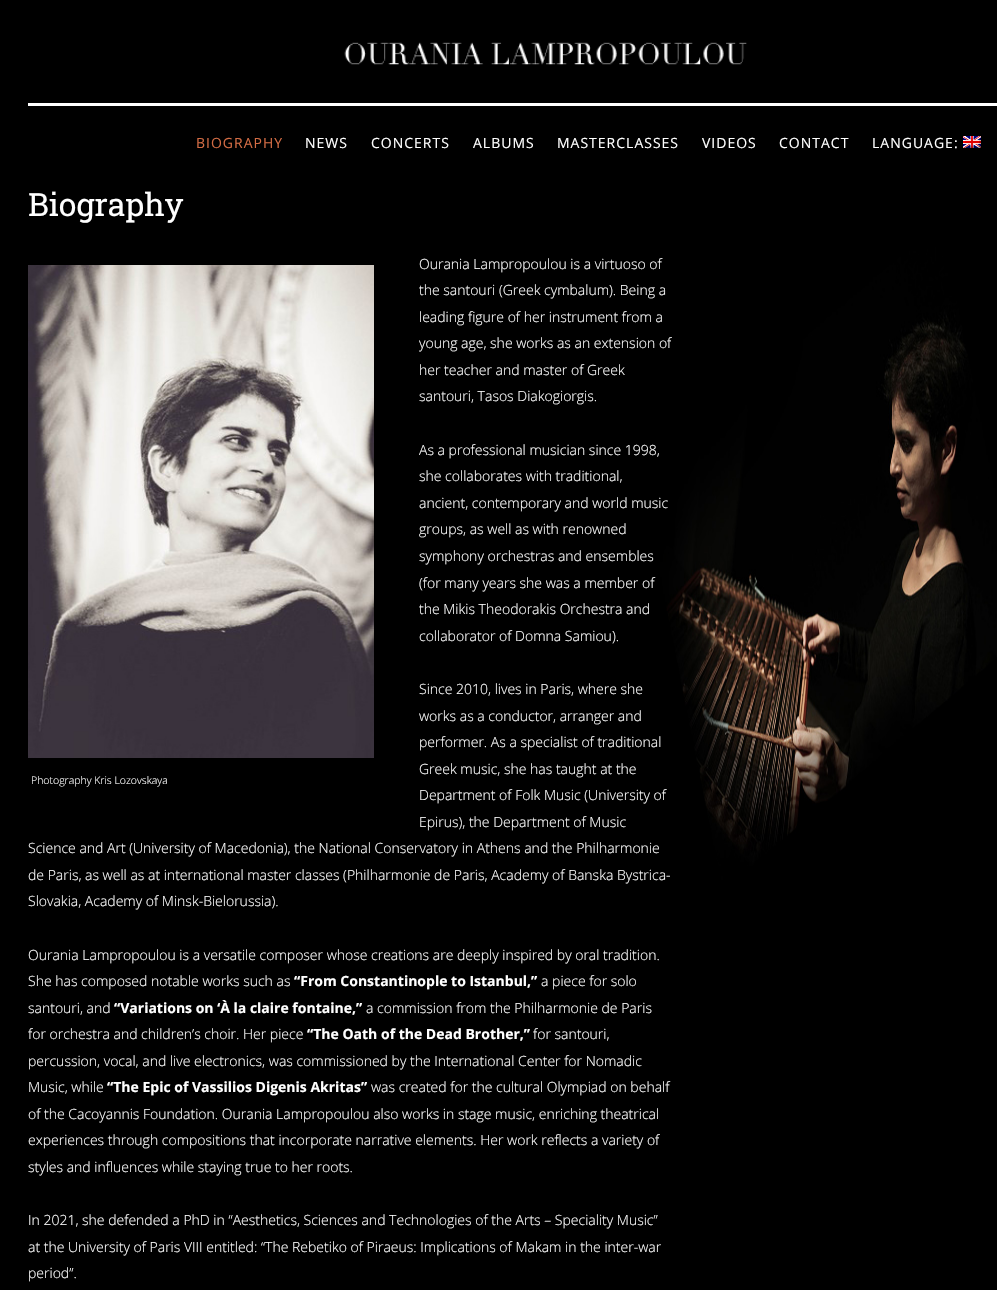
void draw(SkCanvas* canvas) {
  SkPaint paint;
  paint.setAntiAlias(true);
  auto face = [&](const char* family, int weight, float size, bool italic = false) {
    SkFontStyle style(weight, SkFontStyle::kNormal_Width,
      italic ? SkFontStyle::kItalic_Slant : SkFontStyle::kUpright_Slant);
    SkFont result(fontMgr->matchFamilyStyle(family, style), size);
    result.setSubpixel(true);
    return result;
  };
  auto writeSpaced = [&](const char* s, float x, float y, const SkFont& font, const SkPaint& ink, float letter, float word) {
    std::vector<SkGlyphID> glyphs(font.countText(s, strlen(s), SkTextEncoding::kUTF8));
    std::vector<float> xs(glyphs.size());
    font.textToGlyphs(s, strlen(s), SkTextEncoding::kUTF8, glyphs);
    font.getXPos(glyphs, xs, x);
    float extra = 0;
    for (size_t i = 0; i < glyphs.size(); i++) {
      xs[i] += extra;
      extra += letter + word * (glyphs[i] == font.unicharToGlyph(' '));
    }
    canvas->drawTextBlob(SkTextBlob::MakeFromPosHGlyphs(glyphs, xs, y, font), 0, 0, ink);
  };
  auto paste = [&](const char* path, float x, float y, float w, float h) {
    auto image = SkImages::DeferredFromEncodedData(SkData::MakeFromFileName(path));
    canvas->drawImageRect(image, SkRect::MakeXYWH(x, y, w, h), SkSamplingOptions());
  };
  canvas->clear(0xffffffff);
  paste("img/1.png", 0, 0, 997, 1290);
  paint.setColor(0xffffffff);
  canvas->drawRect(SkRect::MakeXYWH(28, 103, 969, 3), paint);
  paste("img/2.png", 344, 42, 403, 23);
  paste("img/3.png", 963, 136, 18, 12);
  paste("img/4.png", 28, 265, 346, 493);
  auto f0 = face("Open Sans", 400, 14);
  paint.setColor(0xffd36c44);
  writeSpaced("BIOGRAPHY", 196, 148, f0, paint, 1, 0);
  paint.setColor(0xffffffff);
  {
    const struct { const char* s; float x, y; } items[] = {
      {"NEWS", 305, 148},
      {"CONCERTS", 371, 148},
      {"ALBUMS", 473, 148},
      {"MASTERCLASSES", 557, 148},
      {"VIDEOS", 702, 148},
      {"CONTACT", 779, 148},
      {"LANGUAGE:", 872, 148},
    };
    for (auto [s, x, y] : items) {
      writeSpaced(s, x, y, f0, paint, 1, 0);
    }
  }
  auto f1 = face("Roboto Slab", 400, 32);
  canvas->drawString("Biography", 28, 216, f1, paint);
  auto f2 = face("Open Sans", 300, 14);
  {
    const struct { const char* s; float x, y; } items[] = {
      {"Ourania Lampropoulou is a virtuoso of", 419, 269},
      {"the santouri (Greek cymbalum). Being a", 419, 295},
      {"leading figure of her instrument from a", 419, 322},
      {"young age, she works as an extension of", 419, 348},
      {"her teacher and master of Greek", 419, 375},
      {"santοuri, Tasos Diakogiorgis.", 419, 401},
      {"As a professional musician since 1998,", 419, 455},
      {"she collaborates with traditional,", 419, 481},
      {"ancient, contemporary and world music", 419, 508},
      {"groups, as well as with renowned", 419, 534},
      {"symphony orchestras and ensembles", 419, 561},
      {"(for many years she was a member of", 419, 588},
      {"the Mikis Theodorakis Orchestra and", 419, 614},
      {"collaborator of Domna Samiou).", 419, 641},
      {"Since 2010, lives in Paris, where she", 419, 694},
      {"works as a conductor, arranger and", 419, 721},
      {"performer. As a specialist of traditional", 419, 747},
      {"Greek music, she has taught at the", 419, 774},
      {"Department of Folk Music (University of", 419, 800},
      {"Epirus), the Department of Music", 419, 827},
      {"Science and Art (University of Macedonia), the National Conservatory in Athens and the Philharmonie", 28, 853},
      {"de Paris, as well as at international master classes (Philharmonie de Paris, Academy of Banska Bystrica-", 28, 880},
      {"Slovakia, Academy of Minsk-Bielorussia).", 28, 906},
    };
    for (auto [s, x, y] : items) {
      canvas->drawString(s, x, y, f2, paint);
    }
  }
  auto f3 = face("Open Sans", 300, 10.5f);
  canvas->drawString("Photography Kris Lozovskaya", 31, 784, f3, paint);
  canvas->drawString("Ourania Lampropoulou is a versatile composer whose creations are deeply inspired by oral tradition.", 28, 960, f2, paint);
  canvas->drawString("She has composed notable works such as", 28, 986, f2, paint);
  auto f4 = face("Open Sans", 700, 14);
  canvas->drawString("“From Constantinople to Istanbul,”", 294, 986, f4, paint);
  canvas->drawString("a piece for solo", 541, 986, f2, paint);
  canvas->drawString("santouri, and", 28, 1013, f2, paint);
  canvas->drawString("“Variations on ‘À la claire fontaine,”", 114, 1013, f4, paint);
  canvas->drawString("a commission from the Philharmonie de Paris", 366, 1013, f2, paint);
  canvas->drawString("for orchestra and children’s choir. Her piece", 28, 1039, f2, paint);
  canvas->drawString("“The Oath of the Dead Brother,”", 307, 1039, f4, paint);
  {
    const struct { const char* s; float x, y; } items[] = {
      {"for santouri,", 533, 1039},
      {"percussion, vocal, and live electronics, was commissioned by the International Center for Nomadic", 28, 1066},
      {"Music, while", 28, 1092},
    };
    for (auto [s, x, y] : items) {
      canvas->drawString(s, x, y, f2, paint);
    }
  }
  canvas->drawString("“The Epic of Vassilios Digenis Akritas”", 107, 1092, f4, paint);
  {
    const struct { const char* s; float x, y; } items[] = {
      {"was created for the cultural Olympiad on behalf", 371, 1092},
      {"of the Cacoyannis Foundation. Ourania Lampropoulou also works in stage music, enriching theatrical", 28, 1119},
      {"experiences through compositions that incorporate narrative elements. Her work reflects a variety of", 28, 1145},
      {"styles and influences while staying true to her roots.", 28, 1172},
      {"In 2021, she defended a PhD in “Aesthetics, Sciences and Technologies of the Arts – Speciality Music”", 28, 1225},
      {"at the University of Paris VIII entitled: “The Rebetiko of Piraeus: Implications of Makam in the inter-war", 28, 1252},
      {"period”.", 28, 1278},
    };
    for (auto [s, x, y] : items) {
      canvas->drawString(s, x, y, f2, paint);
    }
  }
}
